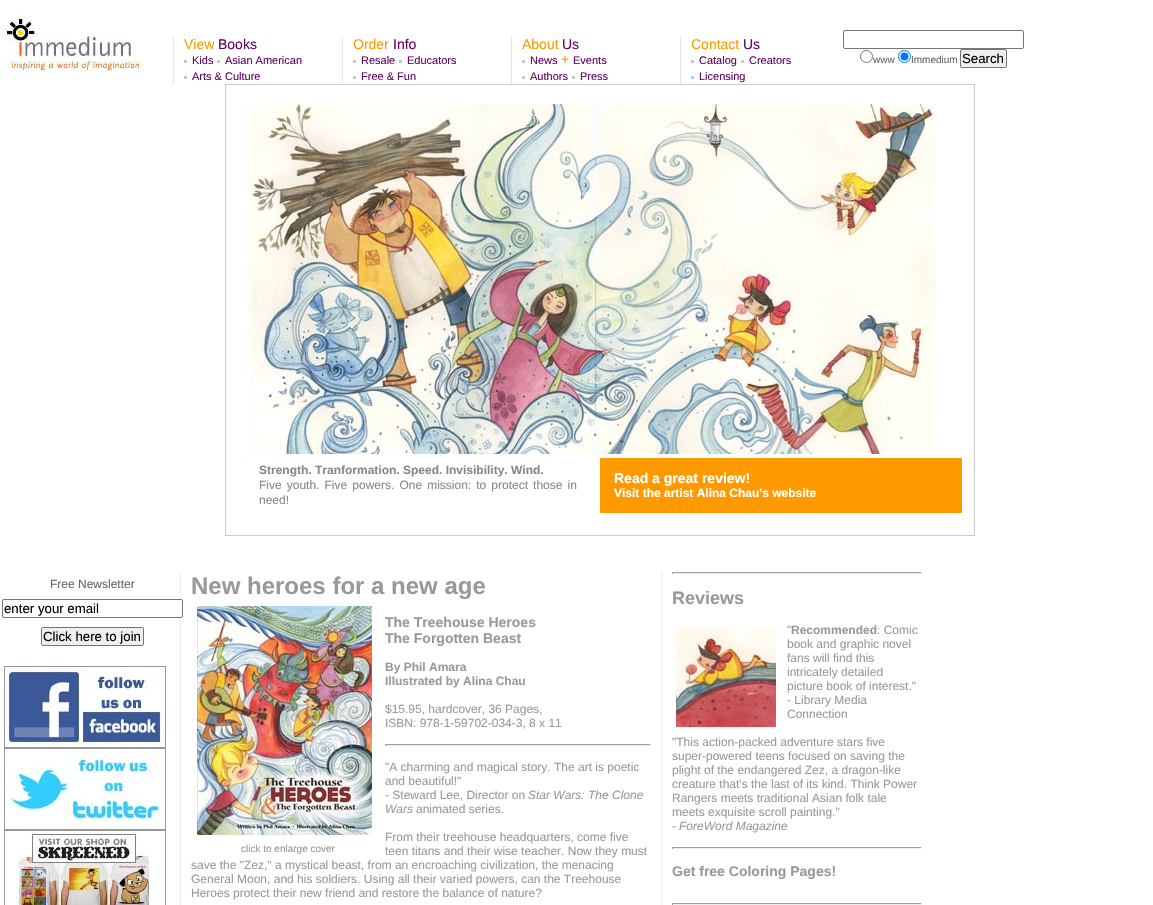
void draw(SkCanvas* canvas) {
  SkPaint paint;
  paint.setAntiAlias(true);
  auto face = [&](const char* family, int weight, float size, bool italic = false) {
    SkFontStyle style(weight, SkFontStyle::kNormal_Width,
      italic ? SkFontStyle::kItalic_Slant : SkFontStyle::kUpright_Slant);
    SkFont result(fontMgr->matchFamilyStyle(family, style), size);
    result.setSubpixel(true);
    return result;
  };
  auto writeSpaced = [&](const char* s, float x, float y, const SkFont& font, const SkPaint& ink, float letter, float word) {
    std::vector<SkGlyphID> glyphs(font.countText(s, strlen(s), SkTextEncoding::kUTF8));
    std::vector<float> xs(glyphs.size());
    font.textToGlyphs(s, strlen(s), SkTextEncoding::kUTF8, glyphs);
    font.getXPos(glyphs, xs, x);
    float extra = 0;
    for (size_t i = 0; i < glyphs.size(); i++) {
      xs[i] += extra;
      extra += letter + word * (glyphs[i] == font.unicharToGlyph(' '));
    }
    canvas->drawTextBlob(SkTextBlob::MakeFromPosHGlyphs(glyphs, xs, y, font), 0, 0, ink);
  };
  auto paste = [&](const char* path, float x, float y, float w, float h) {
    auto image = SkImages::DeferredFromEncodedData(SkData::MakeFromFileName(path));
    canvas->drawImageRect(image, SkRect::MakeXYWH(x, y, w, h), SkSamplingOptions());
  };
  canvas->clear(0xffffffff);
  paste("img/1.png", 1, 13, 143, 63);
  {
    const struct { float x, y, w, h; SkColor color; } items[] = {
      {173, 37, 1, 47, 0xffe5e5e5},
      {184, 60, 3, 3, 0xffc9c9c9},
      {217, 60, 3, 3, 0xffc9c9c9},
      {184, 76, 3, 3, 0xffc9c9c9},
      {342, 37, 1, 47, 0xffe5e5e5},
      {353, 60, 3, 3, 0xffc9c9c9},
      {399, 60, 3, 3, 0xffc9c9c9},
      {353, 76, 3, 3, 0xffc9c9c9},
      {511, 37, 1, 47, 0xffe5e5e5},
      {522, 60, 3, 3, 0xffc9c9c9},
      {522, 76, 3, 3, 0xffc9c9c9},
      {572, 76, 3, 3, 0xffc9c9c9},
      {680, 37, 1, 47, 0xffe5e5e5},
      {691, 60, 3, 3, 0xffc9c9c9},
      {741, 60, 3, 3, 0xffc9c9c9},
      {691, 76, 3, 3, 0xffc9c9c9},
    };
    for (auto [x, y, w, h, color] : items) {
      paint.setColor(color);
      canvas->drawRect(SkRect::MakeXYWH(x, y, w, h), paint);
    }
  }
  paint.setStroke(true);
  paint.setStrokeWidth(1);
  paint.setColor(0xff767676);
  canvas->drawRoundRect(SkRect::MakeXYWH(843.5f, 30.5f, 180, 18), 1.5f, 1.5f, paint);
  canvas->drawCircle(866.5f, 56.5f, 6, paint);
  paint.setColor(0xff0075ff);
  canvas->drawCircle(904.5f, 56.5f, 6, paint);
  paint.setStroke(false);
  canvas->drawCircle(904.5f, 56.5f, 4, paint);
  paint.setColor(0xffefefef);
  canvas->drawRoundRect(SkRect::MakeXYWH(960.5f, 49.5f, 46, 18), 1.5f, 1.5f, paint);
  paint.setStroke(true);
  paint.setColor(0xff767676);
  canvas->drawRoundRect(SkRect::MakeXYWH(960.5f, 49.5f, 46, 18), 1.5f, 1.5f, paint);
  paint.setColor(0xffcccccc);
  canvas->drawRect(SkRect::MakeXYWH(225.5f, 84.5f, 749, 451), paint);
  paste("img/2.png", 246, 104, 692, 350);
  paint.setStroke(false);
  paint.setColor(0xffff9900);
  canvas->drawRect(SkRect::MakeXYWH(600, 458, 362, 55), paint);
  paint.setColor(0xffeeeeee);
  canvas->drawRect(SkRect::MakeXYWH(180, 572, 1, 333), paint);
  paint.setColor(0xffffffff);
  canvas->drawRoundRect(SkRect::MakeXYWH(2.5f, 599.5f, 180, 18), 1.5f, 1.5f, paint);
  paint.setStroke(true);
  paint.setColor(0xff767676);
  canvas->drawRoundRect(SkRect::MakeXYWH(2.5f, 599.5f, 180, 18), 1.5f, 1.5f, paint);
  paint.setStroke(false);
  paint.setColor(0xffefefef);
  canvas->drawRoundRect(SkRect::MakeXYWH(41.5f, 627.5f, 102, 18), 1.5f, 1.5f, paint);
  paint.setStroke(true);
  paint.setColor(0xff767676);
  canvas->drawRoundRect(SkRect::MakeXYWH(41.5f, 627.5f, 102, 18), 1.5f, 1.5f, paint);
  paint.setColor(0xff999999);
  canvas->drawRect(SkRect::MakeXYWH(4.5f, 666.5f, 161, 81), paint);
  paste("img/3.png", 5, 667, 160, 80);
  canvas->drawRect(SkRect::MakeXYWH(4.5f, 748.5f, 161, 81), paint);
  paste("img/4.png", 5, 749, 160, 80);
  canvas->drawRect(SkRect::MakeXYWH(4.5f, 830.5f, 161, 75), paint);
  paste("img/5.png", 17, 831, 132, 74);
  paint.setStroke(false);
  {
    const struct { float x, y, w, h; SkColor color; } items[] = {
      {661, 572, 1, 333, 0xffeeeeee},
      {385, 744, 266, 1, 0xff9f9f9f},
      {650, 744, 1, 2, 0xffeeeeee},
      {385, 745, 266, 1, 0xffeeeeee},
      {385, 744, 1, 2, 0xff9f9f9f},
    };
    for (auto [x, y, w, h, color] : items) {
      paint.setColor(color);
      canvas->drawRect(SkRect::MakeXYWH(x, y, w, h), paint);
    }
  }
  paste("img/6.png", 197, 606, 175, 229);
  {
    const struct { float x, y, w, h; SkColor color; } items[] = {
      {672, 572, 250, 1, 0xff9f9f9f},
      {921, 572, 1, 2, 0xffeeeeee},
      {672, 573, 250, 1, 0xffeeeeee},
      {672, 572, 1, 2, 0xff9f9f9f},
    };
    for (auto [x, y, w, h, color] : items) {
      paint.setColor(color);
      canvas->drawRect(SkRect::MakeXYWH(x, y, w, h), paint);
    }
  }
  paste("img/7.png", 676, 627, 100, 100);
  {
    const struct { float x, y, w, h; SkColor color; } items[] = {
      {672, 847, 250, 1, 0xff9f9f9f},
      {921, 847, 1, 2, 0xffeeeeee},
      {672, 848, 250, 1, 0xffeeeeee},
      {672, 847, 1, 2, 0xff9f9f9f},
      {672, 903, 250, 1, 0xff9f9f9f},
      {921, 903, 1, 2, 0xffeeeeee},
      {672, 904, 250, 1, 0xffeeeeee},
      {672, 903, 1, 2, 0xff9f9f9f},
    };
    for (auto [x, y, w, h, color] : items) {
      paint.setColor(color);
      canvas->drawRect(SkRect::MakeXYWH(x, y, w, h), paint);
    }
  }
  auto f0 = face("Liberation Sans", 400, 14);
  paint.setColor(0xffff9900);
  canvas->drawString("View", 184, 49, f0, paint);
  paint.setColor(0xff660066);
  canvas->drawString("Books", 218, 49, f0, paint);
  auto f1 = face("Liberation Sans", 400, 11);
  {
    const struct { const char* s; float x, y; } items[] = {
      {"Kids", 192, 64},
      {"Asian American", 225, 64},
      {"Arts & Culture", 192, 80},
    };
    for (auto [s, x, y] : items) {
      canvas->drawString(s, x, y, f1, paint);
    }
  }
  paint.setColor(0xffff9900);
  canvas->drawString("Order", 353, 49, f0, paint);
  paint.setColor(0xff660066);
  canvas->drawString("Info", 393, 49, f0, paint);
  {
    const struct { const char* s; float x, y; } items[] = {
      {"Resale", 361, 64},
      {"Educators", 407, 64},
      {"Free & Fun", 361, 80},
    };
    for (auto [s, x, y] : items) {
      canvas->drawString(s, x, y, f1, paint);
    }
  }
  paint.setColor(0xffff9900);
  canvas->drawString("About", 522, 49, f0, paint);
  paint.setColor(0xff660066);
  canvas->drawString("Us", 562, 49, f0, paint);
  canvas->drawString("News", 530, 64, f1, paint);
  paint.setColor(0xffff9900);
  canvas->drawString("+", 561, 64, f0, paint);
  paint.setColor(0xff660066);
  {
    const struct { const char* s; float x, y; } items[] = {
      {"Events", 573, 64},
      {"Authors", 530, 80},
      {"Press", 580, 80},
    };
    for (auto [s, x, y] : items) {
      canvas->drawString(s, x, y, f1, paint);
    }
  }
  paint.setColor(0xffff9900);
  canvas->drawString("Contact", 691, 49, f0, paint);
  paint.setColor(0xff660066);
  canvas->drawString("Us", 743, 49, f0, paint);
  {
    const struct { const char* s; float x, y; } items[] = {
      {"Catalog", 699, 64},
      {"Creators", 749, 64},
      {"Licensing", 699, 80},
    };
    for (auto [s, x, y] : items) {
      canvas->drawString(s, x, y, f1, paint);
    }
  }
  auto f2 = face("Liberation Sans", 400, 10);
  paint.setColor(0xff666666);
  canvas->drawString("www", 873, 63, f2, paint);
  canvas->drawString("Immedium", 911, 63, f2, paint);
  auto f3 = face("Liberation Sans", 400, 13.25f);
  paint.setColor(0xff000000);
  canvas->drawString("Search", 962, 63, f3, paint);
  auto f4 = face("Liberation Sans", 700, 12);
  paint.setColor(0xff888888);
  canvas->drawString("Strength. Tranformation. Speed. Invisibility. Wind.", 259, 474, f4, paint);
  auto f5 = face("Liberation Sans", 400, 12);
  writeSpaced("Five youth. Five powers. One mission: to protect those in", 259, 489, f5, paint, 0, 1.75f);
  canvas->drawString("need!", 259, 504, f5, paint);
  auto f6 = face("Liberation Sans", 700, 14);
  paint.setColor(0xffffffff);
  canvas->drawString("Read a great review!", 614, 483, f6, paint);
  canvas->drawString("Visit the artist Alina Chau's website", 614, 497, f4, paint);
  paint.setColor(0xff666666);
  canvas->drawString("Free Newsletter", 50, 588, f5, paint);
  paint.setColor(0xff000000);
  canvas->drawString("enter your email", 4, 613, f3, paint);
  canvas->drawString("Click here to join", 43, 641, f3, paint);
  auto f7 = face("Liberation Sans", 700, 24);
  paint.setColor(0xff999999);
  canvas->drawString("New heroes for a new age", 191, 594, f7, paint);
  canvas->drawString("The Treehouse Heroes", 385, 627, f6, paint);
  canvas->drawString("The Forgotten Beast", 385, 643, f6, paint);
  canvas->drawString("By Phil Amara", 385, 671, f4, paint);
  canvas->drawString("Illustrated by Alina Chau", 385, 685, f4, paint);
  {
    const struct { const char* s; float x, y; } items[] = {
      {"$15.95, hardcover, 36 Pages,", 385, 713},
      {"ISBN: 978-1-59702-034-3, 8 x 11", 385, 727},
      {"\"A charming and magical story. The art is poetic", 385, 771},
      {"and beautiful!\"", 385, 785},
      {"- Steward Lee, Director on", 385, 799},
    };
    for (auto [s, x, y] : items) {
      canvas->drawString(s, x, y, f5, paint);
    }
  }
  auto f8 = face("Liberation Sans", 400, 12, true);
  canvas->drawString("Star Wars: The Clone", 528, 799, f8, paint);
  canvas->drawString("Wars", 385, 813, f8, paint);
  canvas->drawString("animated series.", 416, 813, f5, paint);
  canvas->drawString("From their treehouse headquarters, come five", 385, 841, f5, paint);
  canvas->drawString("click to enlarge cover", 241, 852, f2, paint);
  {
    const struct { const char* s; float x, y; } items[] = {
      {"teen titans and their wise teacher. Now they must", 385, 855},
      {"save the \"Zez,\" a mystical beast, from an encroaching civilization, the menacing", 191, 869},
      {"General Moon, and his soldiers. Using all their varied powers, can the Treehouse", 191, 883},
      {"Heroes protect their new friend and restore the balance of nature?", 191, 897},
    };
    for (auto [s, x, y] : items) {
      canvas->drawString(s, x, y, f5, paint);
    }
  }
  auto f9 = face("Liberation Sans", 700, 18);
  canvas->drawString("Reviews", 672, 604, f9, paint);
  canvas->drawString("\"", 787, 634, f5, paint);
  canvas->drawString("Recommended", 791, 634, f4, paint);
  {
    const struct { const char* s; float x, y; } items[] = {
      {": Comic", 877, 634},
      {"book and graphic novel", 787, 648},
      {"fans will find this", 787, 662},
      {"intricately detailed", 787, 676},
      {"picture book of interest.\"", 787, 690},
      {"- Library Media", 787, 704},
      {"Connection", 787, 718},
      {"\"This action-packed adventure stars five", 672, 746},
      {"super-powered teens focused on saving the", 672, 760},
      {"plight of the endangered Zez, a dragon-like", 672, 774},
      {"creature that's the last of its kind. Think Power", 672, 788},
      {"Rangers meets traditional Asian folk tale", 672, 802},
      {"meets exquisite scroll painting.\"", 672, 816},
      {"-", 672, 830},
    };
    for (auto [s, x, y] : items) {
      canvas->drawString(s, x, y, f5, paint);
    }
  }
  canvas->drawString("ForeWord Magazine", 679, 830, f8, paint);
  canvas->drawString("Get free Coloring Pages!", 672, 876, f6, paint);
}
